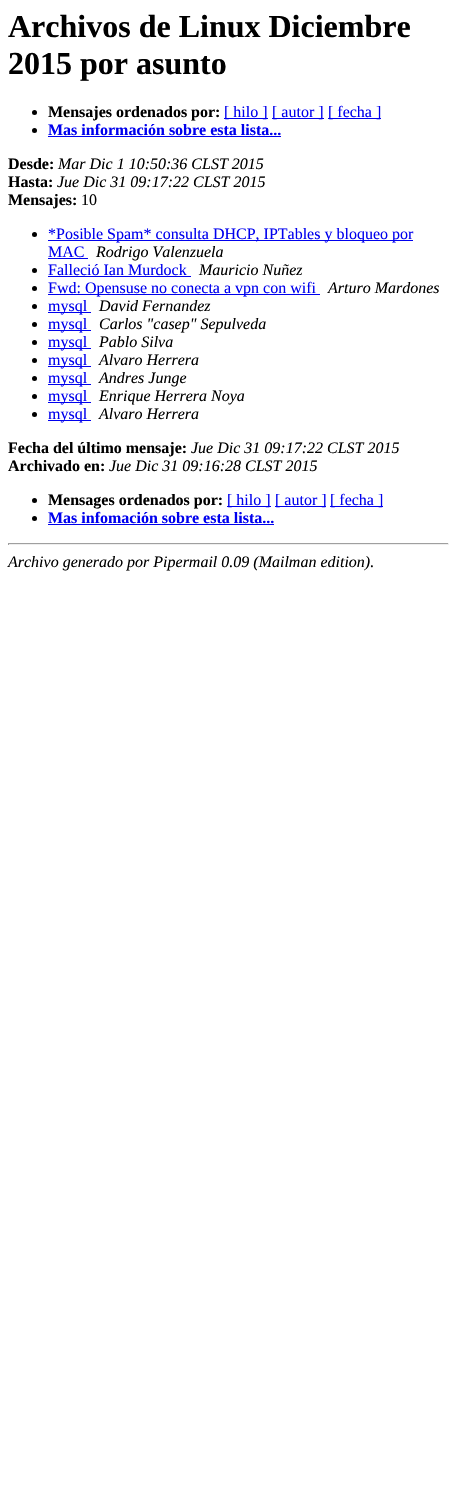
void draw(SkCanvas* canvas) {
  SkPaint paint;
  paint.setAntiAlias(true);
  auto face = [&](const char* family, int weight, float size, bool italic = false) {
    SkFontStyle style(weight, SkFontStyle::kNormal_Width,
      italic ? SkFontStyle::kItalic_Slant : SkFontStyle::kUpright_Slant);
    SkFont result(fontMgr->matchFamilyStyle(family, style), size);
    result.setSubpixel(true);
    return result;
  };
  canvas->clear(0xffffffff);
  paint.setColor(0xff000000);
  canvas->drawCircle(34.5f, 112.5f, 2.5f, paint);
  {
    const struct { float x, y, w, h; SkColor color; } items[] = {
      {224, 118, 44, 1, 0xff0000ee},
      {272, 118, 52, 1, 0xff0000ee},
      {328, 118, 53, 1, 0xff0000ee},
    };
    for (auto [x, y, w, h, color] : items) {
      paint.setColor(color);
      canvas->drawRect(SkRect::MakeXYWH(x, y, w, h), paint);
    }
  }
  paint.setColor(0xff000000);
  canvas->drawCircle(34.5f, 130.5f, 2.5f, paint);
  paint.setColor(0xff0000ee);
  canvas->drawRect(SkRect::MakeXYWH(48, 136, 233, 1), paint);
  paint.setColor(0xff000000);
  canvas->drawCircle(34.5f, 234.5f, 2.5f, paint);
  paint.setColor(0xff0000ee);
  canvas->drawRect(SkRect::MakeXYWH(48, 240, 365, 1), paint);
  canvas->drawRect(SkRect::MakeXYWH(48, 258, 40, 1), paint);
  paint.setColor(0xff000000);
  canvas->drawCircle(34.5f, 270.5f, 2.5f, paint);
  paint.setColor(0xff0000ee);
  canvas->drawRect(SkRect::MakeXYWH(48, 276, 143, 1), paint);
  paint.setColor(0xff000000);
  canvas->drawCircle(34.5f, 288.5f, 2.5f, paint);
  paint.setColor(0xff0000ee);
  canvas->drawRect(SkRect::MakeXYWH(48, 294, 272, 1), paint);
  paint.setColor(0xff000000);
  canvas->drawCircle(34.5f, 306.5f, 2.5f, paint);
  paint.setColor(0xff0000ee);
  canvas->drawRect(SkRect::MakeXYWH(48, 312, 43, 1), paint);
  paint.setColor(0xff000000);
  canvas->drawCircle(34.5f, 324.5f, 2.5f, paint);
  paint.setColor(0xff0000ee);
  canvas->drawRect(SkRect::MakeXYWH(48, 330, 43, 1), paint);
  paint.setColor(0xff000000);
  canvas->drawCircle(34.5f, 342.5f, 2.5f, paint);
  paint.setColor(0xff0000ee);
  canvas->drawRect(SkRect::MakeXYWH(48, 348, 43, 1), paint);
  paint.setColor(0xff000000);
  canvas->drawCircle(34.5f, 360.5f, 2.5f, paint);
  paint.setColor(0xff0000ee);
  canvas->drawRect(SkRect::MakeXYWH(48, 366, 43, 1), paint);
  paint.setColor(0xff000000);
  canvas->drawCircle(34.5f, 378.5f, 2.5f, paint);
  paint.setColor(0xff0000ee);
  canvas->drawRect(SkRect::MakeXYWH(48, 384, 43, 1), paint);
  paint.setColor(0xff000000);
  canvas->drawCircle(34.5f, 396.5f, 2.5f, paint);
  paint.setColor(0xff0000ee);
  canvas->drawRect(SkRect::MakeXYWH(48, 402, 43, 1), paint);
  paint.setColor(0xff000000);
  canvas->drawCircle(34.5f, 414.5f, 2.5f, paint);
  paint.setColor(0xff0000ee);
  canvas->drawRect(SkRect::MakeXYWH(48, 420, 43, 1), paint);
  paint.setColor(0xff000000);
  canvas->drawCircle(34.5f, 500.5f, 2.5f, paint);
  {
    const struct { float x, y, w, h; SkColor color; } items[] = {
      {227, 506, 44, 1, 0xff0000ee},
      {275, 506, 51, 1, 0xff0000ee},
      {330, 506, 53, 1, 0xff0000ee},
    };
    for (auto [x, y, w, h, color] : items) {
      paint.setColor(color);
      canvas->drawRect(SkRect::MakeXYWH(x, y, w, h), paint);
    }
  }
  paint.setColor(0xff000000);
  canvas->drawCircle(34.5f, 518.5f, 2.5f, paint);
  {
    const struct { float x, y, w, h; SkColor color; } items[] = {
      {48, 524, 226, 1, 0xff0000ee},
      {8, 543, 441, 1, 0xff9f9f9f},
      {448, 543, 1, 2, 0xffeeeeee},
      {8, 544, 441, 1, 0xffeeeeee},
      {8, 543, 1, 2, 0xff9f9f9f},
    };
    for (auto [x, y, w, h, color] : items) {
      paint.setColor(color);
      canvas->drawRect(SkRect::MakeXYWH(x, y, w, h), paint);
    }
  }
  auto f0 = face("Liberation Serif", 700, 32);
  paint.setColor(0xff000000);
  canvas->drawString("Archivos de Linux Diciembre", 8, 37, f0, paint);
  canvas->drawString("2015 por asunto", 8, 74, f0, paint);
  auto f1 = face("Liberation Serif", 700, 16);
  canvas->drawString("Mensajes ordenados por:", 48, 117, f1, paint);
  auto f2 = face("Liberation Serif", 400, 16);
  paint.setColor(0xff0000ee);
  {
    const struct { const char* s; float x, y; } items[] = {
      {"[ hilo ]", 224, 117},
      {"[ autor ]", 272, 117},
      {"[ fecha ]", 328, 117},
    };
    for (auto [s, x, y] : items) {
      canvas->drawString(s, x, y, f2, paint);
    }
  }
  canvas->drawString("Mas información sobre esta lista...", 48, 135, f1, paint);
  paint.setColor(0xff000000);
  canvas->drawString("Desde:", 8, 169, f1, paint);
  auto f3 = face("Liberation Serif", 400, 16, true);
  canvas->drawString("Mar Dic 1 10:50:36 CLST 2015", 58, 169, f3, paint);
  canvas->drawString("Hasta:", 8, 187, f1, paint);
  canvas->drawString("Jue Dic 31 09:17:22 CLST 2015", 57, 187, f3, paint);
  canvas->drawString("Mensajes:", 8, 205, f1, paint);
  canvas->drawString("10", 81, 205, f2, paint);
  paint.setColor(0xff0000ee);
  canvas->drawString("*Posible Spam* consulta DHCP, IPTables y bloqueo por", 48, 239, f2, paint);
  canvas->drawString("MAC", 48, 257, f2, paint);
  paint.setColor(0xff000000);
  canvas->drawString("Rodrigo Valenzuela", 96, 257, f3, paint);
  paint.setColor(0xff0000ee);
  canvas->drawString("Falleció Ian Murdock", 48, 275, f2, paint);
  paint.setColor(0xff000000);
  canvas->drawString("Mauricio Nuñez", 199, 275, f3, paint);
  paint.setColor(0xff0000ee);
  canvas->drawString("Fwd: Opensuse no conecta a vpn con wifi", 48, 293, f2, paint);
  paint.setColor(0xff000000);
  canvas->drawString("Arturo Mardones", 328, 293, f3, paint);
  paint.setColor(0xff0000ee);
  canvas->drawString("mysql", 48, 311, f2, paint);
  paint.setColor(0xff000000);
  canvas->drawString("David Fernandez", 99, 311, f3, paint);
  paint.setColor(0xff0000ee);
  canvas->drawString("mysql", 48, 329, f2, paint);
  paint.setColor(0xff000000);
  canvas->drawString("Carlos \"casep\" Sepulveda", 99, 329, f3, paint);
  paint.setColor(0xff0000ee);
  canvas->drawString("mysql", 48, 347, f2, paint);
  paint.setColor(0xff000000);
  canvas->drawString("Pablo Silva", 99, 347, f3, paint);
  paint.setColor(0xff0000ee);
  canvas->drawString("mysql", 48, 365, f2, paint);
  paint.setColor(0xff000000);
  canvas->drawString("Alvaro Herrera", 99, 365, f3, paint);
  paint.setColor(0xff0000ee);
  canvas->drawString("mysql", 48, 383, f2, paint);
  paint.setColor(0xff000000);
  canvas->drawString("Andres Junge", 99, 383, f3, paint);
  paint.setColor(0xff0000ee);
  canvas->drawString("mysql", 48, 401, f2, paint);
  paint.setColor(0xff000000);
  canvas->drawString("Enrique Herrera Noya", 99, 401, f3, paint);
  paint.setColor(0xff0000ee);
  canvas->drawString("mysql", 48, 419, f2, paint);
  paint.setColor(0xff000000);
  canvas->drawString("Alvaro Herrera", 99, 419, f3, paint);
  canvas->drawString("Fecha del último mensaje:", 8, 453, f1, paint);
  canvas->drawString("Jue Dic 31 09:17:22 CLST 2015", 191, 453, f3, paint);
  canvas->drawString("Archivado en:", 8, 471, f1, paint);
  canvas->drawString("Jue Dic 31 09:16:28 CLST 2015", 109, 471, f3, paint);
  canvas->drawString("Mensages ordenados por:", 48, 505, f1, paint);
  paint.setColor(0xff0000ee);
  {
    const struct { const char* s; float x, y; } items[] = {
      {"[ hilo ]", 227, 505},
      {"[ autor ]", 275, 505},
      {"[ fecha ]", 330, 505},
    };
    for (auto [s, x, y] : items) {
      canvas->drawString(s, x, y, f2, paint);
    }
  }
  canvas->drawString("Mas infomación sobre esta lista...", 48, 523, f1, paint);
  paint.setColor(0xff000000);
  canvas->drawString("Archivo generado por Pipermail 0.09 (Mailman edition).", 8, 567, f3, paint);
}
